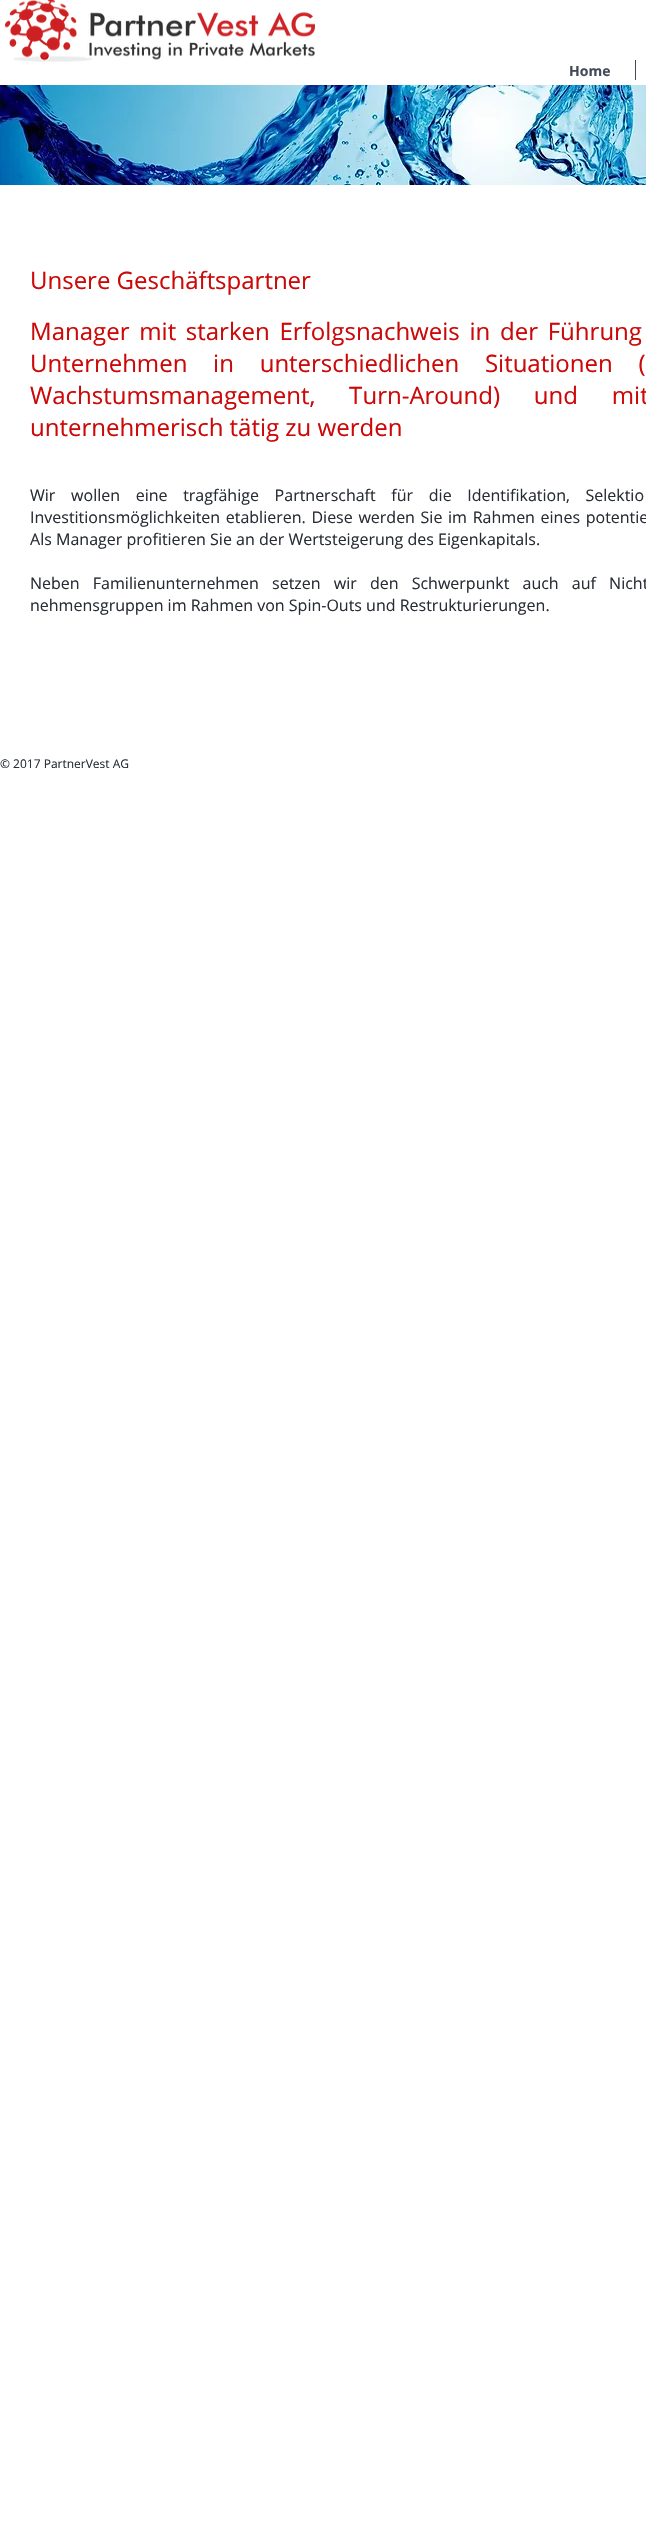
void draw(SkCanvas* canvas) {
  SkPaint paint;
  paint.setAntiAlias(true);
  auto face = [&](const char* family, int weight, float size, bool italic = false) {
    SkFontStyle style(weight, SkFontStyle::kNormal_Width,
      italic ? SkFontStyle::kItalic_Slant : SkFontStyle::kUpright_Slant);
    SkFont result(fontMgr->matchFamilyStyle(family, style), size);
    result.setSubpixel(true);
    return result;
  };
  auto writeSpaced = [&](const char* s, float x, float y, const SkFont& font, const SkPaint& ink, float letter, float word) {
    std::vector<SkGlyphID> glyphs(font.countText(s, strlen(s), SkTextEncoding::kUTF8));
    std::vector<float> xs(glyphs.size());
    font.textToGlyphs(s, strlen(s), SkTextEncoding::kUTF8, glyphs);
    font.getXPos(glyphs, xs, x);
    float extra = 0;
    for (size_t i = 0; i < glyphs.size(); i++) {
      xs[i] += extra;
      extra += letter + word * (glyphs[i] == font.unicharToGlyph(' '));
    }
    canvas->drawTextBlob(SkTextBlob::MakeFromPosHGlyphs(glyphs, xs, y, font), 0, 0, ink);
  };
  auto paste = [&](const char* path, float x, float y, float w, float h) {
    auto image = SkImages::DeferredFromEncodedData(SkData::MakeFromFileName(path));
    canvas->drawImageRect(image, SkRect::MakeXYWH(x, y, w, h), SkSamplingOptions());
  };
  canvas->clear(0xffffffff);
  paste("img/1.png", 5, 0, 310, 62);
  paste("img/2.png", 0, 85, 646, 100);
  paint.setColor(0xff424a56);
  canvas->drawRect(SkRect::MakeXYWH(635, 60, 1, 20), paint);
  auto f0 = face("Open Sans", 700, 14);
  canvas->drawString("Home", 569, 76, f0, paint);
  auto f1 = face("Open Sans", 400, 24);
  paint.setColor(0xffcc0808);
  canvas->drawString("Unsere Geschäftspartner", 30, 289, f1, paint);
  writeSpaced("Manager mit starken Erfolgsnachweis in der Führung", 30, 340, f1, paint, 0, 3.5f);
  writeSpaced("Unternehmen in unterschiedlichen Situationen (", 30, 372, f1, paint, 0, 19.5f);
  writeSpaced("Wachstumsmanagement, Turn-Around) und mit", 30, 404, f1, paint, 0, 27.5f);
  canvas->drawString("unternehmerisch tätig zu werden", 30, 436, f1, paint);
  auto f2 = face("Open Sans", 400, 16);
  paint.setColor(0xff282d35);
  writeSpaced("Wir wollen eine tragfähige Partnerschaft für die Identifikation, Selektio", 30, 501, f2, paint, 0, 11.5f);
  writeSpaced("Investitionsmöglichkeiten etablieren. Diese werden Sie im Rahmen eines potentie", 30, 523, f2, paint, 0, 1.5f);
  canvas->drawString("Als Manager profitieren Sie an der Wertsteigerung des Eigenkapitals.", 30, 545, f2, paint);
  writeSpaced("Neben Familienunternehmen setzen wir den Schwerpunkt auch auf Nicht", 30, 589, f2, paint, 0, 9);
  canvas->drawString("nehmensgruppen im Rahmen von Spin-Outs und Restrukturierungen.", 30, 611, f2, paint);
  auto f3 = face("Open Sans", 400, 12);
  canvas->drawString("© 2017 PartnerVest AG", 0, 768, f3, paint);
}
